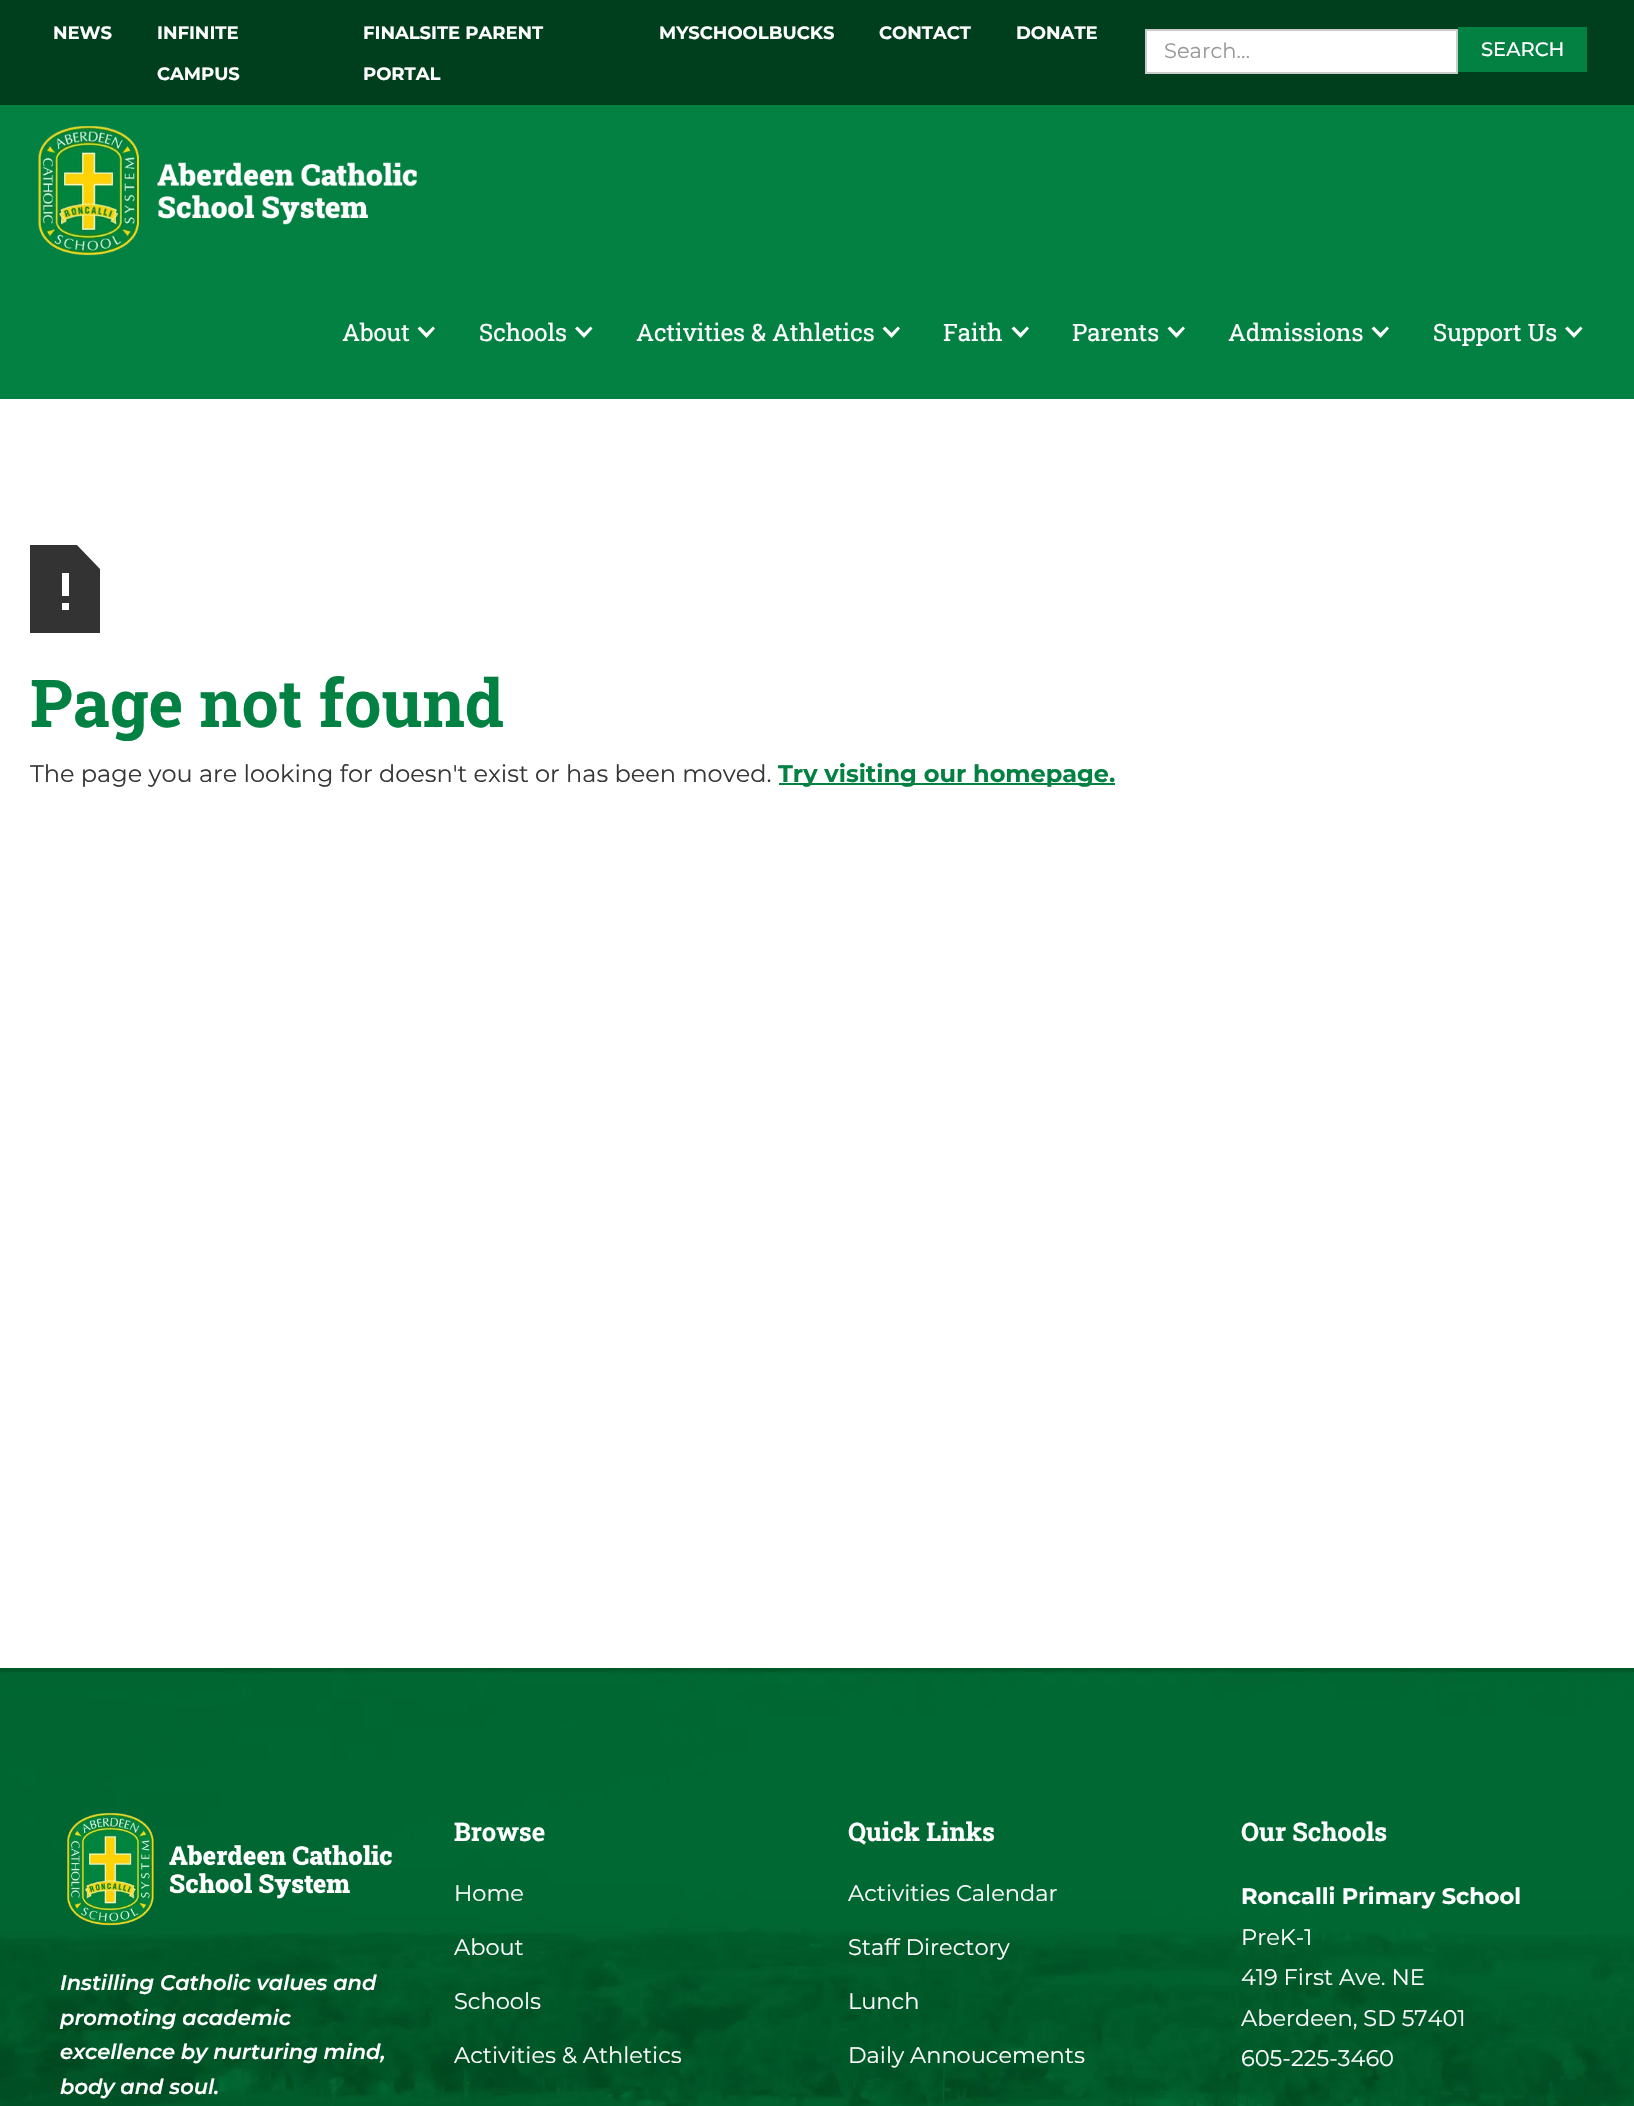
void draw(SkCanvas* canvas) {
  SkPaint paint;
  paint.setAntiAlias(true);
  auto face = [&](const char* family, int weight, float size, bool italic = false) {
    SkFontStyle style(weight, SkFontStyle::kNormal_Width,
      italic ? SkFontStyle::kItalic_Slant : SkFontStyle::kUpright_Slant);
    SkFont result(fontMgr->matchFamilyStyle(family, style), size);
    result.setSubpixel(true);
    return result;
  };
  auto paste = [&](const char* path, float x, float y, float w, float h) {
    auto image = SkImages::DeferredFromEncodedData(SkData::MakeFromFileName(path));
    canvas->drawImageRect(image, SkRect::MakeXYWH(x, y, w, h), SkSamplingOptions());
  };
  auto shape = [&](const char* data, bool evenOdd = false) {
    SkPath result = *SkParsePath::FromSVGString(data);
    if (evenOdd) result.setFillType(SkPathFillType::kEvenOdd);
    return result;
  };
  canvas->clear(0xffffffff);
  paint.setColor(0xff003f1d);
  canvas->drawRect(SkRect::MakeXYWH(0, 0, 1634, 105), paint);
  paint.setColor(0xffffffff);
  canvas->drawRect(SkRect::MakeXYWH(1146, 30, 311, 43), paint);
  paint.setStroke(true);
  paint.setStrokeWidth(2);
  paint.setColor(0xffcccccc);
  canvas->drawRect(SkRect::MakeXYWH(1146, 30, 311, 43), paint);
  paint.setStroke(false);
  paint.setColor(0xff028142);
  canvas->drawRect(SkRect::MakeXYWH(1458, 27, 129, 45), paint);
  canvas->drawRect(SkRect::MakeXYWH(0, 105, 1634, 294), paint);
  paste("img/1.png", 38, 126, 379, 130);
  paint.setColor(0xffffffff);
  canvas->drawPath(shape("M433 326.5L426.5 333L420 326.5L417.5 328.5L426.5 338L435 328.5Z"), paint);
  canvas->drawPath(shape("M590.5 326.5L584 333L577.5 326.5L575 328.5L584 338L592.5 328.5Z"), paint);
  canvas->drawPath(shape("M898 326.5L891.5 333L885 326.5L882.5 328.5L891.5 338L900 328.5Z"), paint);
  canvas->drawPath(shape("M1027 326.5L1020.5 333L1014 326.5L1011.5 328.5L1020.5 338L1029 328.5Z"), paint);
  canvas->drawPath(shape("M1183 326.5L1176.5 333L1170 326.5L1167.5 328.5L1176.5 338L1185 328.5Z"), paint);
  canvas->drawPath(shape("M1387 326.5L1380.5 333L1374 326.5L1371.5 328.5L1380.5 338L1389 328.5Z"), paint);
  canvas->drawPath(shape("M1580.5 326.5L1574 333L1567.5 326.5L1565 328.5L1574 338L1582.5 328.5Z"), paint);
  canvas->save();
  canvas->clipRect(SkRect::MakeXYWH(30, 545, 71, 88));
  paint.setColor(0xff333333);
  canvas->drawPath(shape("M30 544H76L100 569V633H30ZM62 573H69V596H62ZM62 603H69V610H62Z", true), paint);
  canvas->restore();
  paint.setColor(0xff028142);
  canvas->drawRect(SkRect::MakeXYWH(779, 783, 336, 2), paint);
  paste("img/2.png", 0, 1668, 1634, 438);
  paste("img/3.png", 67, 1813, 325, 113);
  auto f0 = face("Montserrat", 700, 18);
  paint.setColor(0xffffffff);
  {
    const struct { const char* s; float x, y; } items[] = {
      {"NEWS", 53, 39},
      {"INFINITE", 157, 39},
      {"CAMPUS", 157, 80},
      {"FINALSITE PARENT", 363, 39},
      {"PORTAL", 363, 80},
      {"MYSCHOOLBUCKS", 659, 39},
      {"CONTACT", 879, 39},
      {"DONATE", 1016, 39},
    };
    for (auto [s, x, y] : items) {
      canvas->drawString(s, x, y, f0, paint);
    }
  }
  auto f1 = face("Montserrat", 400, 21);
  paint.setColor(0xff999999);
  canvas->drawString("Search…", 1164, 58, f1, paint);
  auto f2 = face("Montserrat", 500, 19.5f);
  paint.setColor(0xffffffff);
  canvas->drawString("SEARCH", 1481, 56, f2, paint);
  auto f3 = face("Roboto Slab", 400, 24);
  {
    const struct { const char* s; float x, y; } items[] = {
      {"About", 342, 341},
      {"Schools", 479, 341},
      {"Activities & Athletics", 636, 341},
      {"Faith", 943, 341},
      {"Parents", 1072, 341},
      {"Admissions", 1228, 341},
      {"Support Us", 1433, 341},
    };
    for (auto [s, x, y] : items) {
      canvas->drawString(s, x, y, f3, paint);
    }
  }
  auto f4 = face("Roboto Slab", 700, 66);
  paint.setColor(0xff028142);
  canvas->drawString("Page not found", 30, 727, f4, paint);
  auto f5 = face("Montserrat", 400, 24);
  paint.setColor(0xff373737);
  canvas->drawString("The page you are looking for doesn't exist or has been moved.", 30, 782, f5, paint);
  auto f6 = face("Montserrat", 700, 24);
  paint.setColor(0xff028142);
  canvas->drawString("Try visiting our homepage.", 778, 782, f6, paint);
  auto f7 = face("Montserrat", 600, 21, true);
  paint.setColor(0xffffffff);
  {
    const struct { const char* s; float x, y; } items[] = {
      {"Instilling Catholic values and", 60, 1990},
      {"promoting academic", 60, 2025},
      {"excellence by nurturing mind,", 60, 2059},
      {"body and soul.", 60, 2094},
    };
    for (auto [s, x, y] : items) {
      canvas->drawString(s, x, y, f7, paint);
    }
  }
  auto f8 = face("Roboto Slab", 700, 25.5f);
  canvas->drawString("Browse", 454, 1841, f8, paint);
  auto f9 = face("Montserrat", 400, 22.5f);
  {
    const struct { const char* s; float x, y; } items[] = {
      {"Home", 454, 1901},
      {"About", 454, 1955},
      {"Schools", 454, 2009},
      {"Activities & Athletics", 454, 2063},
    };
    for (auto [s, x, y] : items) {
      canvas->drawString(s, x, y, f9, paint);
    }
  }
  canvas->drawString("Quick Links", 848, 1841, f8, paint);
  {
    const struct { const char* s; float x, y; } items[] = {
      {"Activities Calendar", 848, 1901},
      {"Staff Directory", 848, 1955},
      {"Lunch", 848, 2009},
      {"Daily Annoucements", 848, 2063},
    };
    for (auto [s, x, y] : items) {
      canvas->drawString(s, x, y, f9, paint);
    }
  }
  canvas->drawString("Our Schools", 1241, 1841, f8, paint);
  auto f10 = face("Montserrat", 700, 22.5f);
  canvas->drawString("Roncalli Primary School", 1241, 1904, f10, paint);
  {
    const struct { const char* s; float x, y; } items[] = {
      {"PreK-1", 1241, 1945},
      {"419 First Ave. NE", 1241, 1985},
      {"Aberdeen, SD 57401", 1241, 2026},
      {"605-225-3460", 1241, 2066},
    };
    for (auto [s, x, y] : items) {
      canvas->drawString(s, x, y, f9, paint);
    }
  }
}
